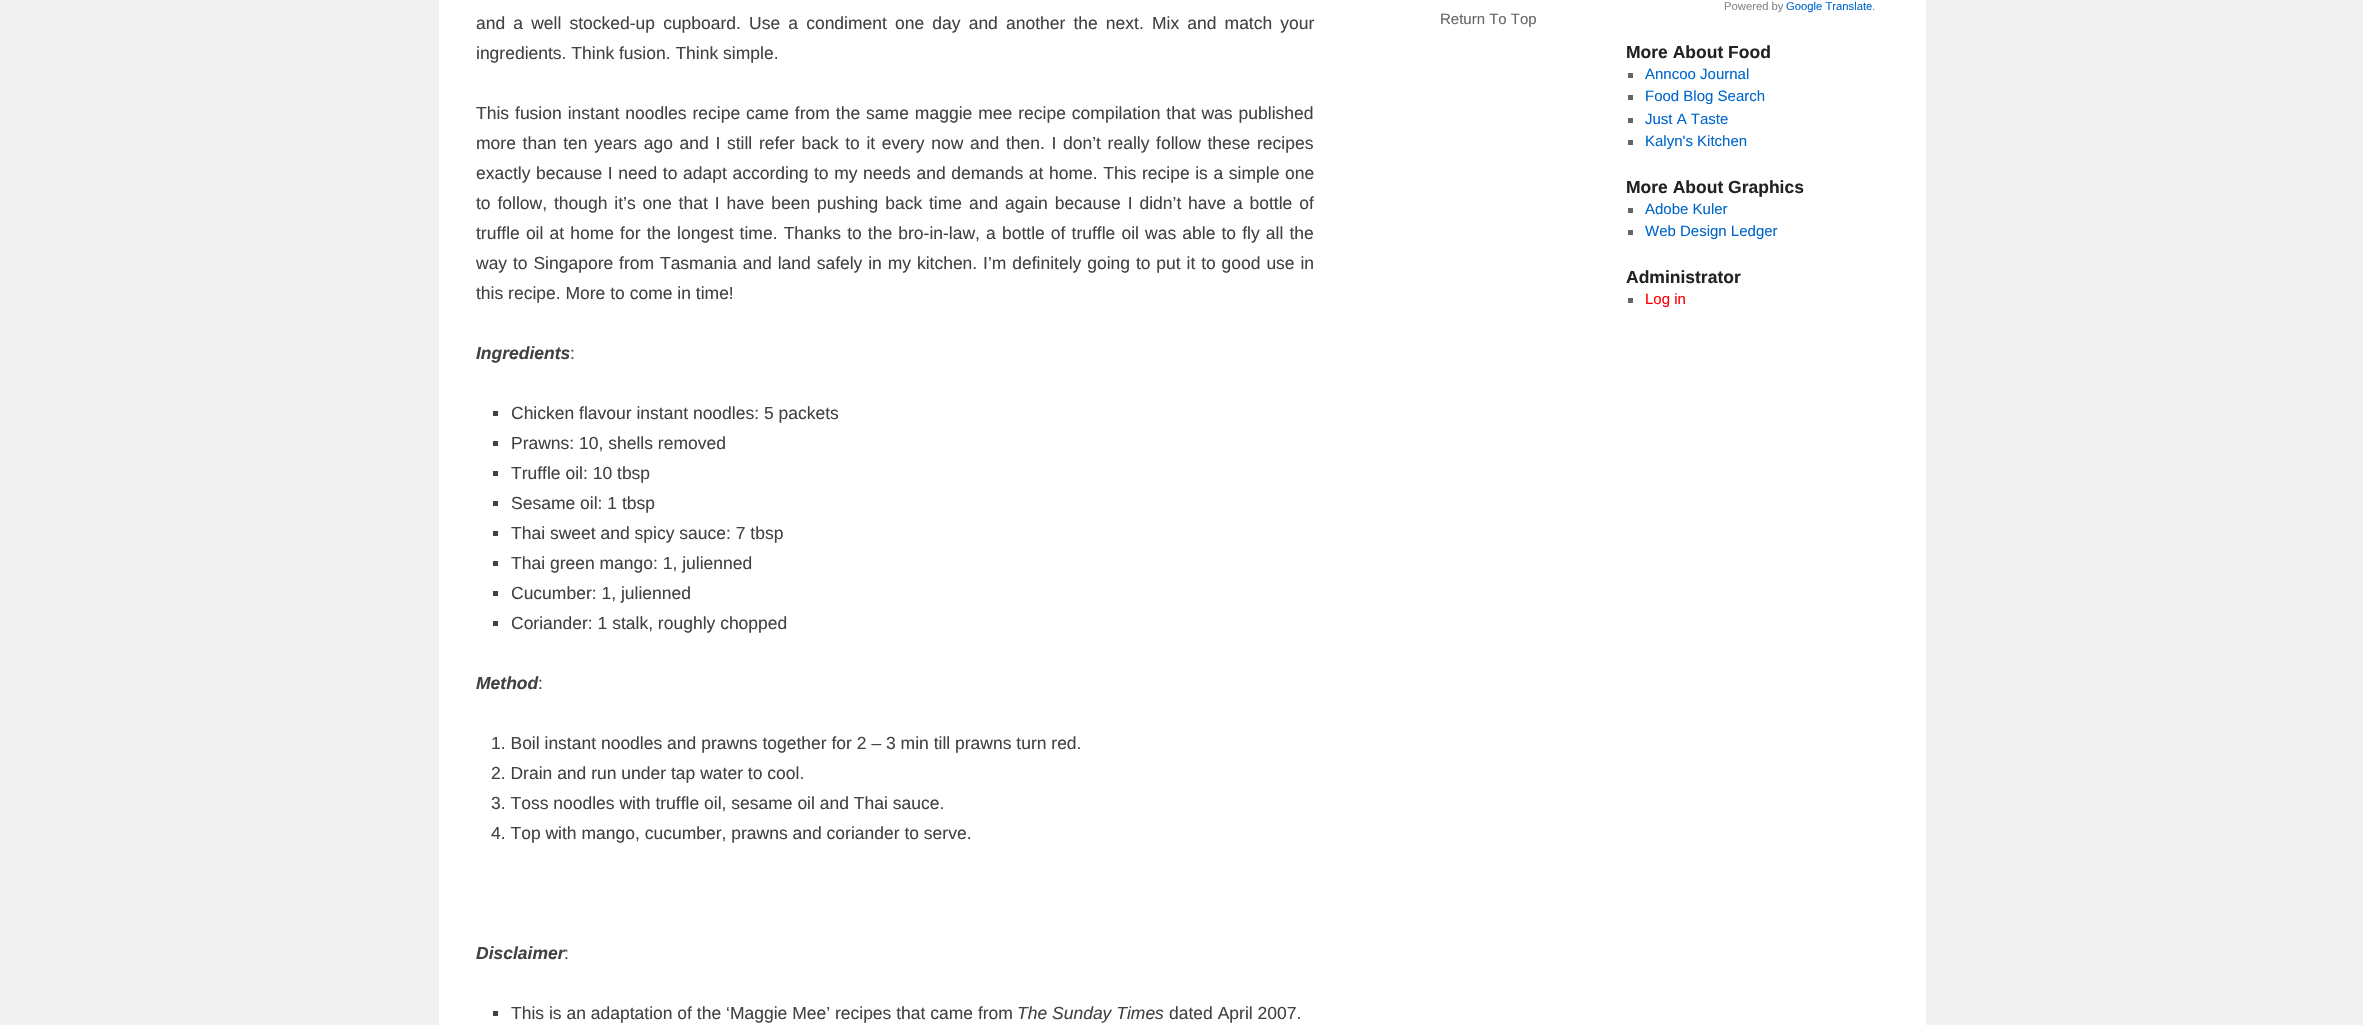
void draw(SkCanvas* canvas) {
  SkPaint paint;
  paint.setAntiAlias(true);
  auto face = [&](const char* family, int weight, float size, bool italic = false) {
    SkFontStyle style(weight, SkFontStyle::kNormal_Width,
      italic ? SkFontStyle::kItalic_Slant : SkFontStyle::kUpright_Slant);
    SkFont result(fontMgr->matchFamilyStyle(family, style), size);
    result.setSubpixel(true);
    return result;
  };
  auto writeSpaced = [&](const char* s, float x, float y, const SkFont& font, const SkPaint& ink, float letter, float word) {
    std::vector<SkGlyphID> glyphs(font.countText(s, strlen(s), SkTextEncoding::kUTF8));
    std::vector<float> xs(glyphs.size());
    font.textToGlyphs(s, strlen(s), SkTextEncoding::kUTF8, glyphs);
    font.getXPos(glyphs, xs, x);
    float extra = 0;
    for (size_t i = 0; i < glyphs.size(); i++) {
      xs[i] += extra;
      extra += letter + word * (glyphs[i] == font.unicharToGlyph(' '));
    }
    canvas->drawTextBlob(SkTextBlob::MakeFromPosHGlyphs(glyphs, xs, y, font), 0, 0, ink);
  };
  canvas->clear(0xfff1f1f1);
  {
    const struct { float x, y, w, h; SkColor color; } items[] = {
      {439, 0, 1487, 1025, 0xffffffff},
      {493, 411, 5, 5, 0xff434142},
      {493, 441, 5, 5, 0xff434142},
      {493, 471, 5, 5, 0xff434142},
      {493, 501, 5, 5, 0xff434142},
      {493, 531, 5, 5, 0xff434142},
      {493, 561, 5, 5, 0xff434142},
      {493, 591, 5, 5, 0xff434142},
      {493, 621, 5, 5, 0xff434142},
      {493, 1011, 5, 5, 0xff434142},
      {1628, 73, 5, 5, 0xff666666},
      {1628, 95, 5, 5, 0xff666666},
      {1628, 118, 5, 5, 0xff666666},
      {1628, 140, 5, 5, 0xff666666},
      {1628, 208, 5, 5, 0xff666666},
      {1628, 230, 5, 5, 0xff666666},
      {1628, 298, 5, 5, 0xff666666},
    };
    for (auto [x, y, w, h, color] : items) {
      paint.setColor(color);
      canvas->drawRect(SkRect::MakeXYWH(x, y, w, h), paint);
    }
  }
  auto f0 = face("Liberation Sans", 400, 17.5f);
  paint.setColor(0xff434142);
  writeSpaced("and a well stocked-up cupboard. Use a condiment one day and another the next. Mix and match your", 476, 29, f0, paint, 0, 3.25f);
  canvas->drawString("ingredients. Think fusion. Think simple.", 476, 59, f0, paint);
  writeSpaced("This fusion instant noodles recipe came from the same maggie mee recipe compilation that was published", 476, 119, f0, paint, 0, 1.1f);
  writeSpaced("more than ten years ago and I still refer back to it every now and then. I don’t really follow these recipes", 476, 149, f0, paint, 0, 1.8f);
  writeSpaced("exactly because I need to adapt according to my needs and demands at home. This recipe is a simple one", 476, 179, f0, paint, 0, 0.75f);
  writeSpaced("to follow, though it’s one that I have been pushing back time and again because I didn’t have a bottle of", 476, 209, f0, paint, 0, 2);
  writeSpaced("truffle oil at home for the longest time. Thanks to the bro-in-law, a bottle of truffle oil was able to fly all the", 476, 239, f0, paint, 0, 1.25f);
  writeSpaced("way to Singapore from Tasmania and land safely in my kitchen. I’m definitely going to put it to good use in", 476, 269, f0, paint, 0, 1);
  canvas->drawString("this recipe. More to come in time!", 476, 299, f0, paint);
  auto f1 = face("Liberation Sans", 700, 17.5f, true);
  canvas->drawString("Ingredients", 476, 359, f1, paint);
  {
    const struct { const char* s; float x, y; } items[] = {
      {":", 570, 359},
      {"Chicken flavour instant noodles: 5 packets", 511, 419},
      {"Prawns: 10, shells removed", 511, 449},
      {"Truffle oil: 10 tbsp", 511, 479},
      {"Sesame oil: 1 tbsp", 511, 509},
      {"Thai sweet and spicy sauce: 7 tbsp", 511, 539},
      {"Thai green mango: 1, julienned", 511, 569},
      {"Cucumber: 1, julienned", 511, 599},
      {"Coriander: 1 stalk, roughly chopped", 511, 629},
    };
    for (auto [s, x, y] : items) {
      canvas->drawString(s, x, y, f0, paint);
    }
  }
  canvas->drawString("Method", 476, 689, f1, paint);
  {
    const struct { const char* s; float x, y; } items[] = {
      {":", 538, 689},
      {"1. Boil instant noodles and prawns together for 2 – 3 min till prawns turn red.", 491, 749},
      {"2. Drain and run under tap water to cool.", 491, 779},
      {"3. Toss noodles with truffle oil, sesame oil and Thai sauce.", 491, 809},
      {"4. Top with mango, cucumber, prawns and coriander to serve.", 491, 839},
    };
    for (auto [s, x, y] : items) {
      canvas->drawString(s, x, y, f0, paint);
    }
  }
  canvas->drawString("Disclaimer", 476, 959, f1, paint);
  canvas->drawString(":", 564, 959, f0, paint);
  canvas->drawString("This is an adaptation of the ‘Maggie Mee’ recipes that came from", 511, 1019, f0, paint);
  auto f2 = face("Liberation Sans", 400, 17.5f, true);
  canvas->drawString("The Sunday Times", 1017, 1019, f2, paint);
  canvas->drawString("dated April 2007.", 1169, 1019, f0, paint);
  auto f3 = face("Liberation Sans", 400, 15);
  paint.setColor(0xff666666);
  canvas->drawString("Return To Top", 1440, 24, f3, paint);
  auto f4 = face("Liberation Sans", 400, 11.25f);
  paint.setColor(0xff888888);
  canvas->drawString("Powered by", 1724, 10, f4, paint);
  paint.setColor(0xff0066cc);
  canvas->drawString("Google Translate", 1786, 10, f4, paint);
  paint.setColor(0xff888888);
  canvas->drawString(".", 1872, 10, f4, paint);
  auto f5 = face("Liberation Sans", 700, 17.5f);
  paint.setColor(0xff222222);
  canvas->drawString("More About Food", 1626, 58, f5, paint);
  paint.setColor(0xff0066cc);
  {
    const struct { const char* s; float x, y; } items[] = {
      {"Anncoo Journal", 1645, 79},
      {"Food Blog Search", 1645, 101},
      {"Just A Taste", 1645, 124},
      {"Kalyn's Kitchen", 1645, 146},
    };
    for (auto [s, x, y] : items) {
      canvas->drawString(s, x, y, f3, paint);
    }
  }
  paint.setColor(0xff222222);
  canvas->drawString("More About Graphics", 1626, 193, f5, paint);
  paint.setColor(0xff0066cc);
  canvas->drawString("Adobe Kuler", 1645, 214, f3, paint);
  canvas->drawString("Web Design Ledger", 1645, 236, f3, paint);
  paint.setColor(0xff222222);
  canvas->drawString("Administrator", 1626, 283, f5, paint);
  paint.setColor(0xffff0000);
  canvas->drawString("Log in", 1645, 304, f3, paint);
}
